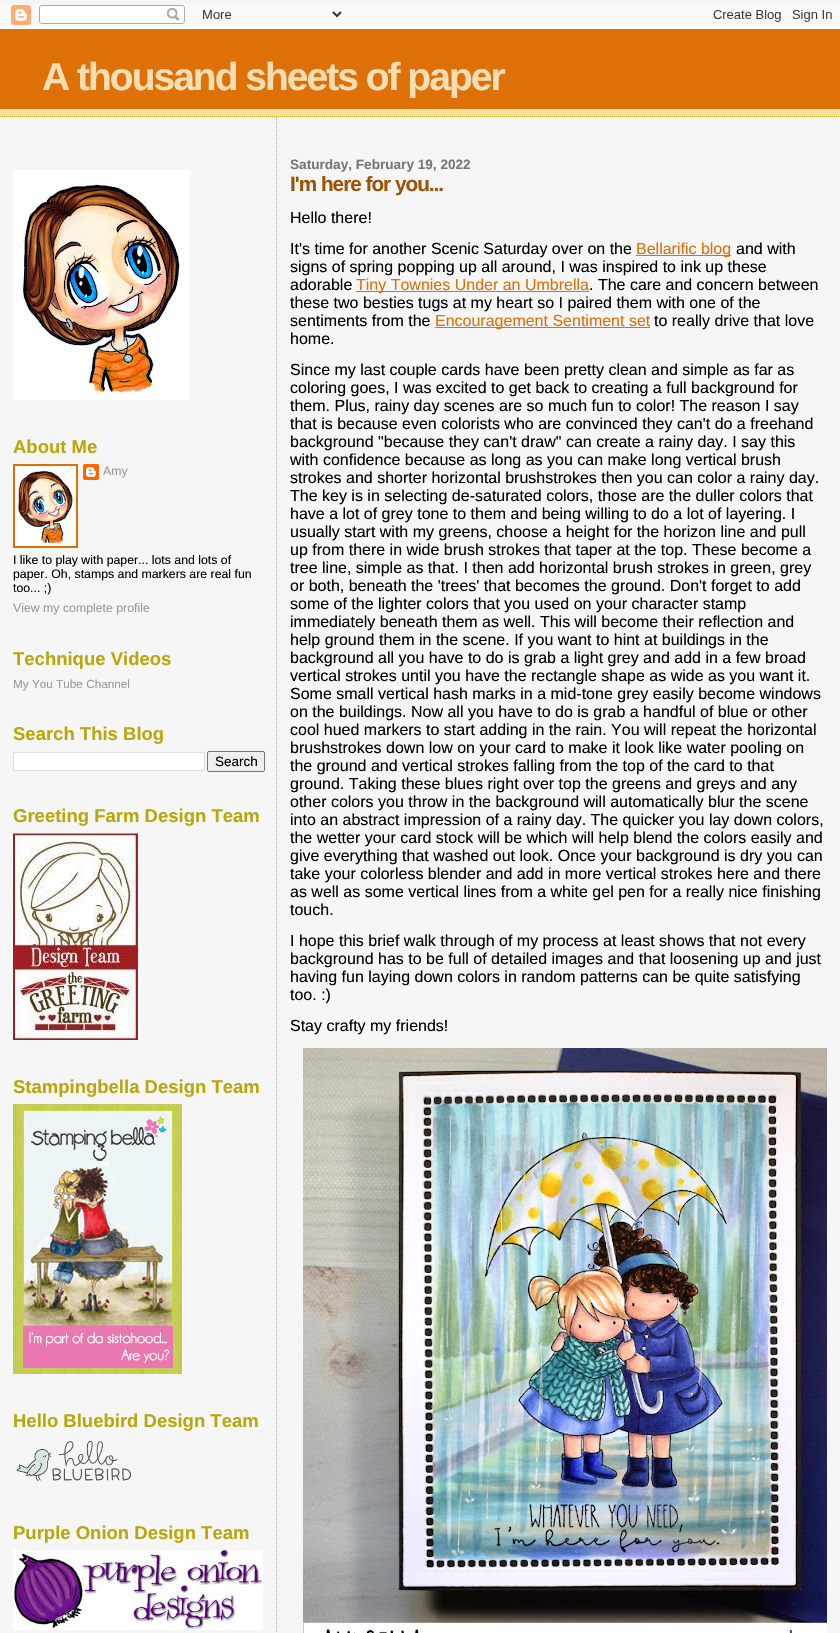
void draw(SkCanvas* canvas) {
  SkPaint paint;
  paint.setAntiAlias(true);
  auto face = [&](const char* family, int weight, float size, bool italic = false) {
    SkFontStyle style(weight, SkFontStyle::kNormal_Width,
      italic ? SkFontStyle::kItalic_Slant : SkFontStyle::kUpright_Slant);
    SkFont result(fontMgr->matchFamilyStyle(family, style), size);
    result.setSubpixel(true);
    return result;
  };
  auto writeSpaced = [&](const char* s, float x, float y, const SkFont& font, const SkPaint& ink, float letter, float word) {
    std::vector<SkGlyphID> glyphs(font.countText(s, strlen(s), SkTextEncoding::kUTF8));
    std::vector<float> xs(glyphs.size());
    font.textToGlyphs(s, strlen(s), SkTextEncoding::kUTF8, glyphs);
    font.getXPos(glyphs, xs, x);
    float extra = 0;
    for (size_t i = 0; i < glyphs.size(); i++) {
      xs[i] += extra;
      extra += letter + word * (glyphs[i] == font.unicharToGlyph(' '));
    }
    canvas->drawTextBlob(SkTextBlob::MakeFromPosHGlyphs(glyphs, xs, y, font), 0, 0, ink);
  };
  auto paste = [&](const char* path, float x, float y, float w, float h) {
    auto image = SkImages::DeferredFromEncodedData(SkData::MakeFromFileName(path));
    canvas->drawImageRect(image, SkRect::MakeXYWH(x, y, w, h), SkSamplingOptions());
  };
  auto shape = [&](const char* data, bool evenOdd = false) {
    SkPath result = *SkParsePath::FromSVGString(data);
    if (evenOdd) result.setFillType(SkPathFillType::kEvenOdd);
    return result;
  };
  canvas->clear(0xfff6f6f6);
  paste("img/1.png", 0, 5, 840, 25);
  paint.setColor(0xfff5e39e);
  canvas->drawRect(SkRect::MakeXYWH(0, 109, 840, 8), paint);
  paint.setStroke(true);
  paint.setStrokeWidth(1);
  paint.setColor(0xffe0ad12);
  paint.setPathEffect(SkDashPathEffect::Make({{1, 1}}, 0));
  canvas->drawPath(shape("M0 116.5H840"), paint);
  paint.setPathEffect(nullptr);
  paint.setStroke(false);
  paint.setColor(0xffde7008);
  canvas->drawRect(SkRect::MakeXYWH(0, 30, 840, 79), paint);
  paste("img/2.png", 13, 170, 177, 230);
  paint.setStroke(true);
  paint.setStrokeWidth(2);
  canvas->drawRect(SkRect::MakeXYWH(14, 465, 63, 82), paint);
  paste("img/3.png", 15, 466, 61, 80);
  paste("img/4.png", 83, 464, 16, 16);
  paint.setStroke(false);
  paint.setColor(0xffffffff);
  canvas->drawRect(SkRect::MakeXYWH(13.5f, 752.5f, 191, 18), paint);
  paint.setStroke(true);
  paint.setStrokeWidth(1);
  paint.setColor(0xffdddddd);
  canvas->drawRect(SkRect::MakeXYWH(13.5f, 752.5f, 191, 18), paint);
  paint.setStroke(false);
  paint.setColor(0xffefefef);
  canvas->drawRoundRect(SkRect::MakeXYWH(207.5f, 751.5f, 57, 20), 1.5f, 1.5f, paint);
  paint.setStroke(true);
  paint.setColor(0xff767676);
  canvas->drawRoundRect(SkRect::MakeXYWH(207.5f, 751.5f, 57, 20), 1.5f, 1.5f, paint);
  paste("img/5.png", 13, 833, 125, 207);
  paste("img/6.png", 13, 1104, 169, 270);
  paste("img/7.png", 15, 1440, 117, 41);
  paste("img/8.png", 13, 1550, 250, 80);
  paint.setColor(0xffe0ad12);
  paint.setPathEffect(SkDashPathEffect::Make({{1, 1}}, 0));
  canvas->drawPath(shape("M276.5 117V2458"), paint);
  paint.setPathEffect(nullptr);
  paint.setStroke(false);
  {
    const struct { float x, y, w, h; SkColor color; } items[] = {
      {636, 255, 95, 1, 0xffde7008},
      {356, 291, 233, 1, 0xffde7008},
      {435, 327, 215, 1, 0xffde7008},
    };
    for (auto [x, y, w, h, color] : items) {
      paint.setColor(color);
      canvas->drawRect(SkRect::MakeXYWH(x, y, w, h), paint);
    }
  }
  paste("img/9.png", 303, 1048, 524, 585);
  auto f0 = face("Liberation Sans", 700, 39);
  paint.setColor(0xfff5deb3);
  writeSpaced("A thousand sheets of paper", 42, 90, f0, paint, -2, 0);
  auto f1 = face("Liberation Sans", 700, 18.5f);
  paint.setColor(0xffb8a80d);
  canvas->drawString("About Me", 13, 453, f1, paint);
  auto f2 = face("Liberation Sans", 400, 12.3f);
  paint.setColor(0xff999999);
  canvas->drawString("Amy", 103, 475, f2, paint);
  paint.setColor(0xff000000);
  {
    const struct { const char* s; float x, y; } items[] = {
      {"I like to play with paper... lots and lots of", 13, 564},
      {"paper. Oh, stamps and markers are real fun", 13, 578},
      {"too... ;)", 13, 592},
    };
    for (auto [s, x, y] : items) {
      canvas->drawString(s, x, y, f2, paint);
    }
  }
  paint.setColor(0xff999999);
  canvas->drawString("View my complete profile", 13, 612, f2, paint);
  paint.setColor(0xffb8a80d);
  canvas->drawString("Technique Videos", 13, 665, f1, paint);
  auto f3 = face("Liberation Sans", 400, 11.75f);
  paint.setColor(0xff999999);
  canvas->drawString("My You Tube Channel", 13, 688, f3, paint);
  paint.setColor(0xffb8a80d);
  canvas->drawString("Search This Blog", 13, 740, f1, paint);
  auto f4 = face("Liberation Sans", 400, 13.5f);
  paint.setColor(0xff000000);
  canvas->drawString("Search", 215, 766, f4, paint);
  paint.setColor(0xffb8a80d);
  {
    const struct { const char* s; float x, y; } items[] = {
      {"Greeting Farm Design Team", 13, 822},
      {"Stampingbella Design Team", 13, 1093},
      {"Hello Bluebird Design Team", 13, 1427},
      {"Purple Onion Design Team", 13, 1539},
    };
    for (auto [s, x, y] : items) {
      canvas->drawString(s, x, y, f1, paint);
    }
  }
  auto f5 = face("Liberation Sans", 700, 13.6f);
  paint.setColor(0xff777777);
  canvas->drawString("Saturday, February 19, 2022", 290, 169, f5, paint);
  auto f6 = face("Liberation Sans", 700, 20.75f);
  paint.setColor(0xff9e5205);
  writeSpaced("I'm here for you...", 290, 191, f6, paint, -1, 0);
  auto f7 = face("Liberation Sans", 400, 16);
  paint.setColor(0xff000000);
  canvas->drawString("Hello there!", 290, 223, f7, paint);
  canvas->drawString("It's time for another Scenic Saturday over on the", 290, 254, f7, paint);
  paint.setColor(0xffde7008);
  canvas->drawString("Bellarific blog", 636, 254, f7, paint);
  paint.setColor(0xff000000);
  {
    const struct { const char* s; float x, y; } items[] = {
      {"and with", 736, 254},
      {"signs of spring popping up all around, I was inspired to ink up these", 290, 272},
      {"adorable", 290, 290},
    };
    for (auto [s, x, y] : items) {
      canvas->drawString(s, x, y, f7, paint);
    }
  }
  paint.setColor(0xffde7008);
  canvas->drawString("Tiny Townies Under an Umbrella", 356, 290, f7, paint);
  paint.setColor(0xff000000);
  {
    const struct { const char* s; float x, y; } items[] = {
      {". The care and concern between", 589, 290},
      {"these two besties tugs at my heart so I paired them with one of the", 290, 308},
      {"sentiments from the", 290, 326},
    };
    for (auto [s, x, y] : items) {
      canvas->drawString(s, x, y, f7, paint);
    }
  }
  paint.setColor(0xffde7008);
  canvas->drawString("Encouragement Sentiment set", 435, 326, f7, paint);
  paint.setColor(0xff000000);
  {
    const struct { const char* s; float x, y; } items[] = {
      {"to really drive that love", 654, 326},
      {"home.", 290, 344},
      {"Since my last couple cards have been pretty clean and simple as far as", 290, 375},
      {"coloring goes, I was excited to get back to creating a full background for", 290, 393},
      {"them. Plus, rainy day scenes are so much fun to color! The reason I say", 290, 411},
      {"that is because even colorists who are convinced they can't do a freehand", 290, 429},
      {"background \"because they can't draw\" can create a rainy day. I say this", 290, 447},
      {"with confidence because as long as you can make long vertical brush", 290, 465},
      {"strokes and shorter horizontal brushstrokes then you can color a rainy day.", 290, 483},
      {"The key is in selecting de-saturated colors, those are the duller colors that", 290, 501},
      {"have a lot of grey tone to them and being willing to do a lot of layering. I", 290, 519},
      {"usually start with my greens, choose a height for the horizon line and pull", 290, 537},
      {"up from there in wide brush strokes that taper at the top. These become a", 290, 555},
      {"tree line, simple as that. I then add horizontal brush strokes in green, grey", 290, 573},
      {"or both, beneath the 'trees' that becomes the ground. Don't forget to add", 290, 591},
      {"some of the lighter colors that you used on your character stamp", 290, 609},
      {"immediately beneath them as well. This will become their reflection and", 290, 627},
      {"help ground them in the scene. If you want to hint at buildings in the", 290, 645},
      {"background all you have to do is grab a light grey and add in a few broad", 290, 663},
      {"vertical strokes until you have the rectangle shape as wide as you want it.", 290, 681},
      {"Some small vertical hash marks in a mid-tone grey easily become windows", 290, 699},
      {"on the buildings. Now all you have to do is grab a handful of blue or other", 290, 717},
      {"cool hued markers to start adding in the rain. You will repeat the horizontal", 290, 735},
      {"brushstrokes down low on your card to make it look like water pooling on", 290, 753},
      {"the ground and vertical strokes falling from the top of the card to that", 290, 771},
      {"ground. Taking these blues right over top the greens and greys and any", 290, 789},
      {"other colors you throw in the background will automatically blur the scene", 290, 807},
      {"into an abstract impression of a rainy day. The quicker you lay down colors,", 290, 825},
      {"the wetter your card stock will be which will help blend the colors easily and", 290, 843},
      {"give everything that washed out look. Once your background is dry you can", 290, 861},
      {"take your colorless blender and add in more vertical strokes here and there", 290, 879},
      {"as well as some vertical lines from a white gel pen for a really nice finishing", 290, 897},
      {"touch.", 290, 915},
      {"I hope this brief walk through of my process at least shows that not every", 290, 946},
      {"background has to be full of detailed images and that loosening up and just", 290, 964},
      {"having fun laying down colors in random patterns can be quite satisfying", 290, 982},
      {"too. :)", 290, 1000},
      {"Stay crafty my friends!", 290, 1031},
    };
    for (auto [s, x, y] : items) {
      canvas->drawString(s, x, y, f7, paint);
    }
  }
}
